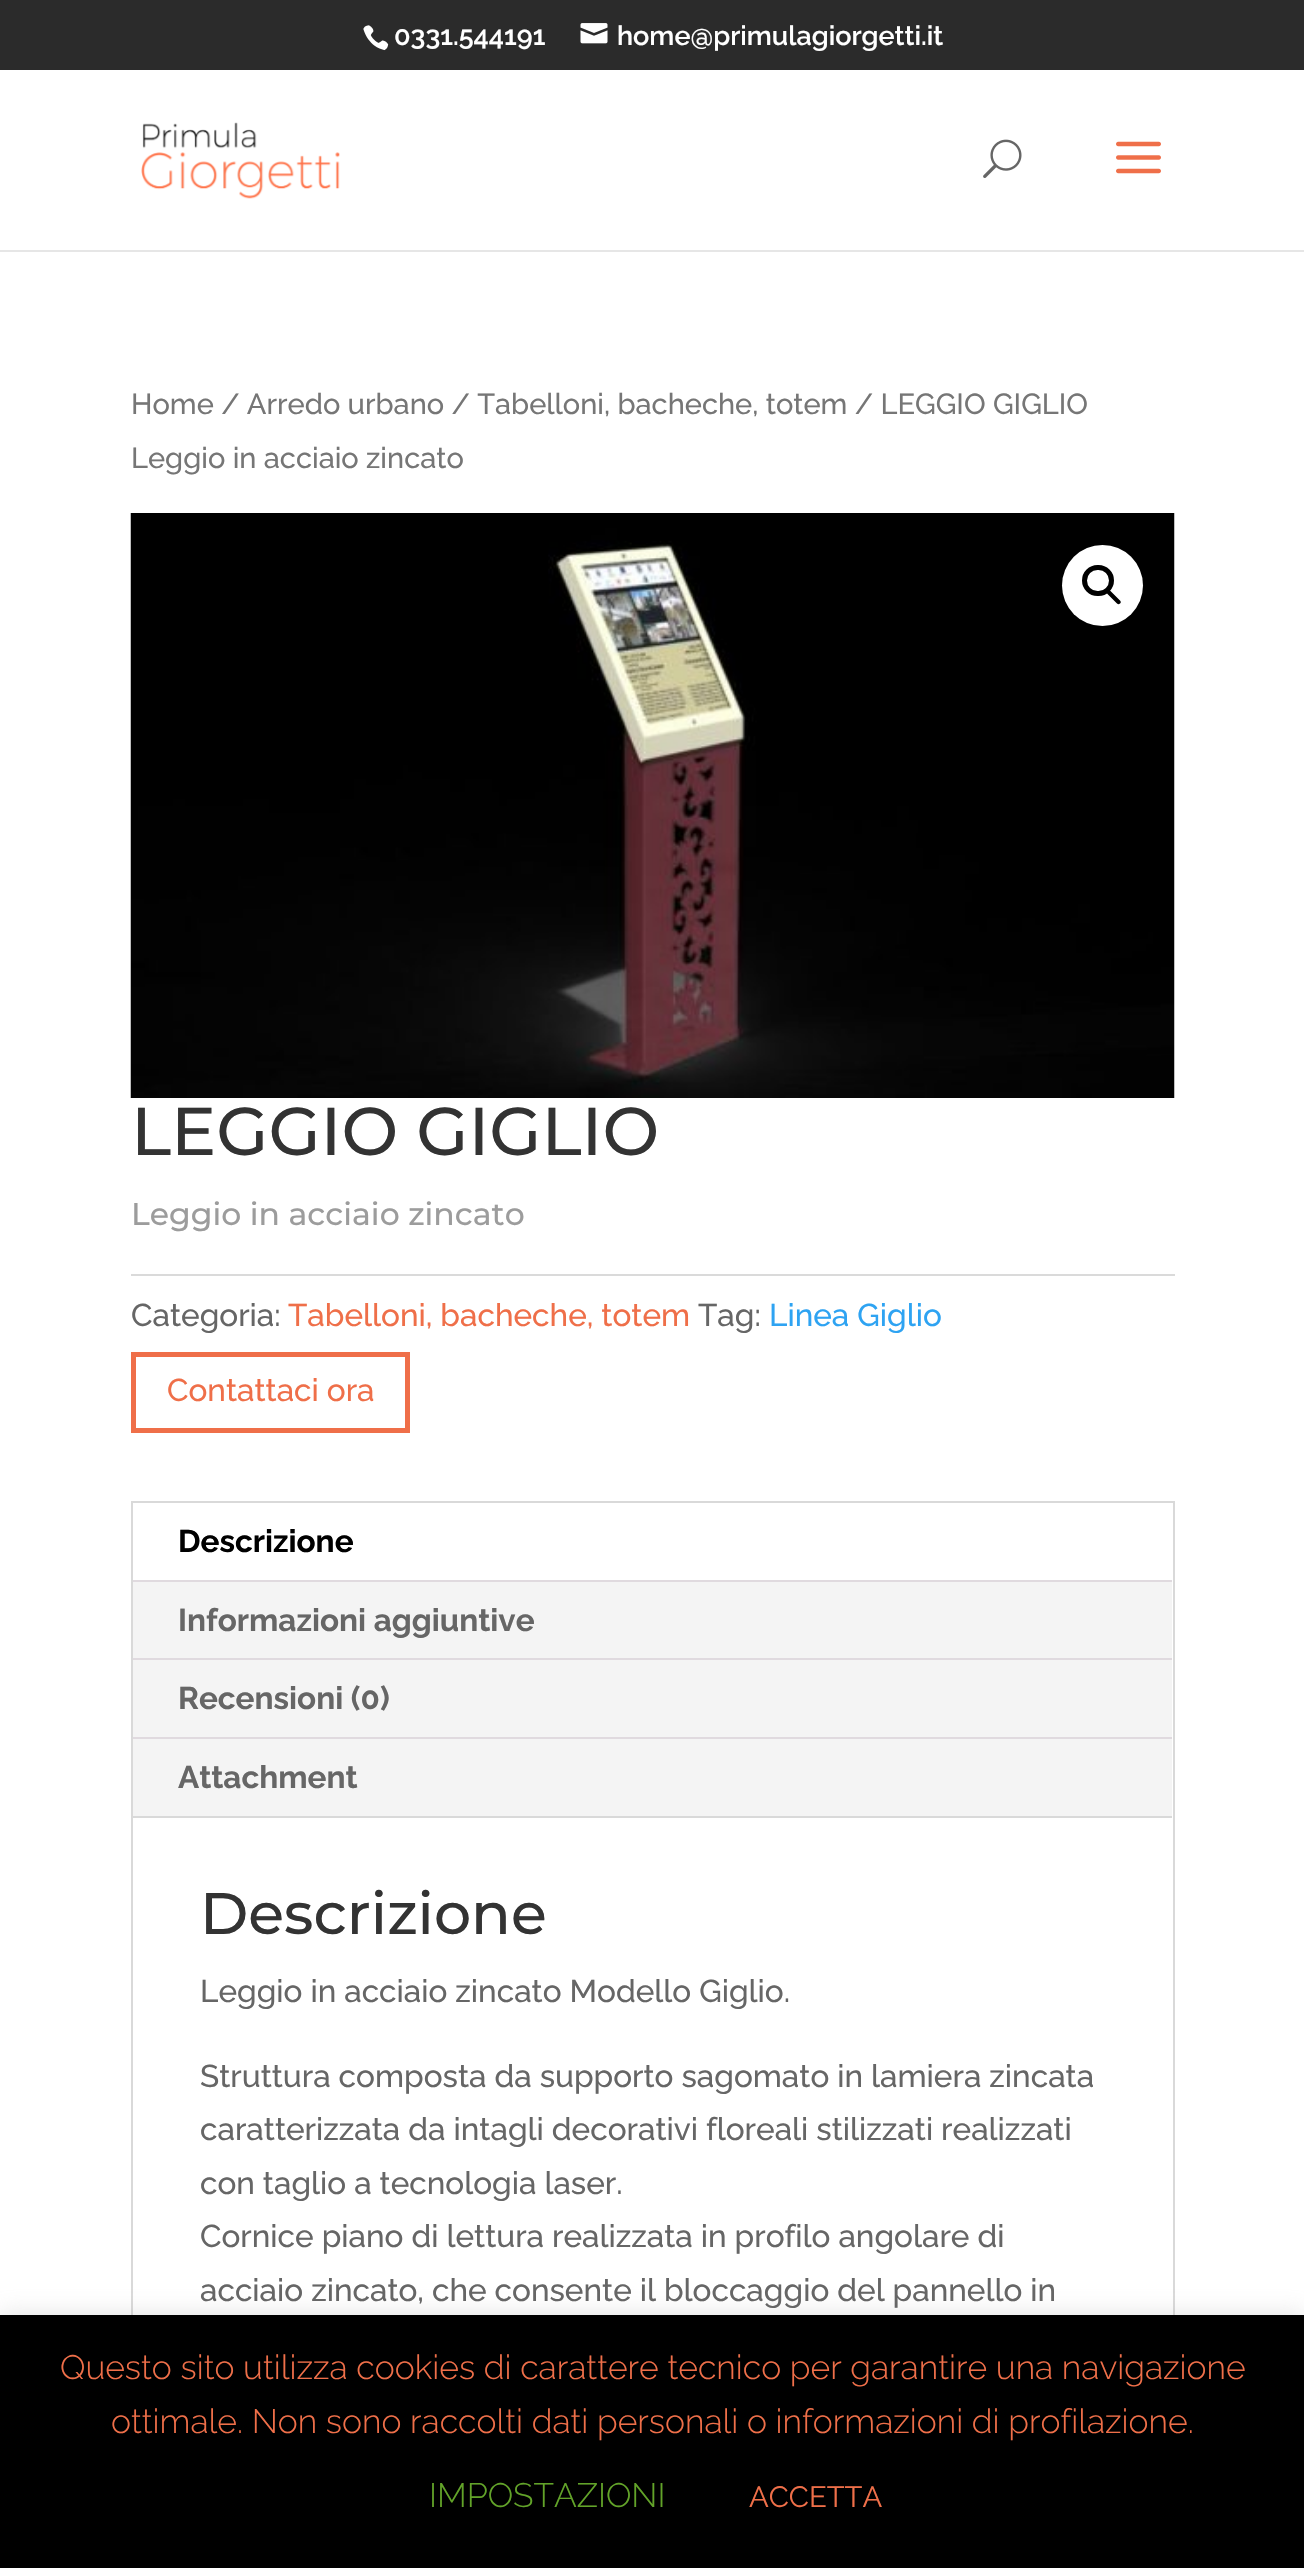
void draw(SkCanvas* canvas) {
  SkPaint paint;
  paint.setAntiAlias(true);
  auto face = [&](const char* family, int weight, float size, bool italic = false) {
    SkFontStyle style(weight, SkFontStyle::kNormal_Width,
      italic ? SkFontStyle::kItalic_Slant : SkFontStyle::kUpright_Slant);
    SkFont result(fontMgr->matchFamilyStyle(family, style), size);
    result.setSubpixel(true);
    return result;
  };
  auto paste = [&](const char* path, float x, float y, float w, float h) {
    auto image = SkImages::DeferredFromEncodedData(SkData::MakeFromFileName(path));
    canvas->drawImageRect(image, SkRect::MakeXYWH(x, y, w, h), SkSamplingOptions());
  };
  auto shape = [&](const char* data, bool evenOdd = false) {
    SkPath result = *SkParsePath::FromSVGString(data);
    if (evenOdd) result.setFillType(SkPathFillType::kEvenOdd);
    return result;
  };
  canvas->clear(0xffffffff);
  paint.setColor(0xff2b2b2b);
  canvas->drawRect(SkRect::MakeXYWH(0, 0, 1304, 70), paint);
  paste("img/1.png", 363, 25, 26, 26);
  paste("img/2.png", 580, 23, 28, 21);
  paint.setColor(0xffe6e6e6);
  canvas->drawRect(SkRect::MakeXYWH(0, 250, 1304, 2), paint);
  paste("img/3.png", 141, 122, 199, 77);
  paste("img/4.png", 983, 139, 39, 39);
  paste("img/5.png", 1116, 141, 45, 33);
  paste("img/6.png", 130, 513, 1045, 585);
  paint.setColor(0xffffffff);
  canvas->drawCircle(1102.5f, 585.5f, 40.5f, paint);
  paint.setStroke(true);
  paint.setStrokeWidth(5);
  paint.setColor(0xff000000);
  canvas->drawRoundRect(SkRect::MakeXYWH(1084.5f, 567.5f, 27, 26), 13, 13, paint);
  paint.setStroke(false);
  canvas->drawPath(shape("M1107.5 591C1108.5 590 1109.5 590 1110.5 591L1120 600.5C1121 601.5 1121 603 1120 603.5C1119 604.5 1118 604.5 1117 603.5L1107.5 594C1106.5 593 1106.5 592 1107.5 591Z"), paint);
  paint.setColor(0xffdadada);
  canvas->drawRect(SkRect::MakeXYWH(131, 1274, 1044, 2), paint);
  paint.setStroke(true);
  paint.setColor(0xffef6f49);
  canvas->drawRect(SkRect::MakeXYWH(133.5f, 1354.5f, 274, 76), paint);
  paint.setStrokeWidth(2);
  paint.setColor(0xffd9d9d9);
  canvas->drawRect(SkRect::MakeXYWH(132, 1502, 1042, 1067), paint);
  paint.setStroke(false);
  {
    const struct { float x, y, w, h; SkColor color; } items[] = {
      {133, 1582, 1039, 234, 0xfff4f4f4},
      {133, 1580, 1039, 2, 0xffe0dadf},
      {133, 1658, 1039, 2, 0xffe0dadf},
      {133, 1737, 1039, 2, 0xffe0dadf},
      {133, 1816, 1039, 2, 0xffd9d9d9},
    };
    for (auto [x, y, w, h, color] : items) {
      paint.setColor(color);
      canvas->drawRect(SkRect::MakeXYWH(x, y, w, h), paint);
    }
  }
  paint.setColor(0x4dacabab);
  paint.setMaskFilter(SkMaskFilter::MakeBlur(kNormal_SkBlurStyle, 11));
  canvas->drawRect(SkRect::MakeXYWH(0, 2313, 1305, 254), paint);
  paint.setMaskFilter(nullptr);
  paint.setColor(0xff000000);
  canvas->drawRect(SkRect::MakeXYWH(0, 2315, 1304, 253), paint);
  auto f0 = face("Raleway", 600, 27);
  paint.setColor(0xffffffff);
  canvas->drawString("0331.544191", 394, 45, f0, paint);
  canvas->drawString("home@primulagiorgetti.it", 617, 45, f0, paint);
  auto f1 = face("Raleway", 500, 29);
  paint.setColor(0xff767676);
  canvas->drawString("Home / Arredo urbano / Tabelloni, bacheche, totem / LEGGIO GIGLIO", 131, 414, f1, paint);
  canvas->drawString("Leggio in acciaio zincato", 131, 468, f1, paint);
  auto f2 = face("Montserrat", 500, 67.5f);
  paint.setColor(0xff333333);
  canvas->drawString("LEGGIO GIGLIO", 131, 1155, f2, paint);
  auto f3 = face("Montserrat", 500, 31.5f);
  paint.setColor(0xff9c9c9c);
  canvas->drawString("Leggio in acciaio zincato", 131, 1225, f3, paint);
  auto f4 = face("Raleway", 500, 31.5f);
  paint.setColor(0xff666666);
  canvas->drawString("Categoria:", 131, 1326, f4, paint);
  paint.setColor(0xffef6f49);
  canvas->drawString("Tabelloni, bacheche, totem", 288, 1326, f4, paint);
  paint.setColor(0xff666666);
  canvas->drawString("Tag:", 698, 1326, f4, paint);
  paint.setColor(0xff2ea3f2);
  canvas->drawString("Linea Giglio", 769, 1326, f4, paint);
  paint.setColor(0xffef6f49);
  canvas->drawString("Contattaci ora", 167, 1401, f4, paint);
  auto f5 = face("Raleway", 700, 31.5f);
  paint.setColor(0xff000000);
  canvas->drawString("Descrizione", 178, 1552, f5, paint);
  paint.setColor(0xff666666);
  {
    const struct { const char* s; float x, y; } items[] = {
      {"Informazioni aggiuntive", 178, 1631},
      {"Recensioni (0)", 178, 1709},
      {"Attachment", 178, 1788},
    };
    for (auto [s, x, y] : items) {
      canvas->drawString(s, x, y, f5, paint);
    }
  }
  auto f6 = face("Montserrat", 500, 58.5f);
  paint.setColor(0xff333333);
  canvas->drawString("Descrizione", 200, 1934, f6, paint);
  paint.setColor(0xff666666);
  {
    const struct { const char* s; float x, y; } items[] = {
      {"Leggio in acciaio zincato Modello Giglio.", 200, 2002},
      {"Struttura composta da supporto sagomato in lamiera zincata", 200, 2087},
      {"caratterizzata da intagli decorativi floreali stilizzati realizzati", 200, 2140},
      {"con taglio a tecnologia laser.", 200, 2194},
      {"Cornice piano di lettura realizzata in profilo angolare di", 200, 2247},
      {"acciaio zincato, che consente il bloccaggio del pannello in", 200, 2301},
    };
    for (auto [s, x, y] : items) {
      canvas->drawString(s, x, y, f4, paint);
    }
  }
  auto f7 = face("Raleway", 300, 33.75f);
  paint.setColor(0xffef6f49);
  canvas->drawString("Questo sito utilizza cookies di carattere tecnico per garantire una navigazione", 60, 2379, f7, paint);
  canvas->drawString("ottimale. Non sono raccolti dati personali o informazioni di profilazione.", 111, 2433, f7, paint);
  paint.setColor(0xff62a329);
  canvas->drawString("IMPOSTAZIONI", 429, 2507, f7, paint);
  auto f8 = face("Raleway", 400, 29.25f);
  paint.setColor(0xffef6f49);
  canvas->drawString("ACCETTA", 749, 2507, f8, paint);
}
